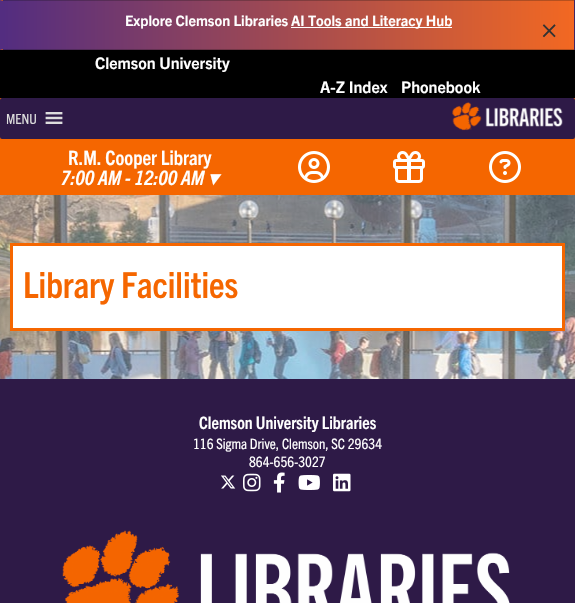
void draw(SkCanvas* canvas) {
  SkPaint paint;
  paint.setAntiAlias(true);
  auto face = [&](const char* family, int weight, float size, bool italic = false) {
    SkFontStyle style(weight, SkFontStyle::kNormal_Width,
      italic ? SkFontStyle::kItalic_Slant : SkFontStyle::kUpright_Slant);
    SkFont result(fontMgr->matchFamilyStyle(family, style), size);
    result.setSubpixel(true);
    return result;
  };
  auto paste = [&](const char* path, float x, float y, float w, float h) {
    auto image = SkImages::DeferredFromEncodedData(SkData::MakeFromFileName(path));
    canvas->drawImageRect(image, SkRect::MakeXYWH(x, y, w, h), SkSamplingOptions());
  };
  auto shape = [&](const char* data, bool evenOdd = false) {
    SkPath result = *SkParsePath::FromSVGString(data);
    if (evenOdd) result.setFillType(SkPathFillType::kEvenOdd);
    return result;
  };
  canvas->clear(0xff000000);
  paint.setColor(0xff532d80);
  canvas->drawRect(SkRect::MakeXYWH(574, 0, 1, 50), paint);
  {
    const SkColor colors[] = {0xff532d80, 0xfff26822};
    const float stops[] = {0, 1};
    const SkPoint ends[] = {{-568, 25}, {3, 25}};
    paint.setShader(SkGradientShader::MakeLinear(ends, colors, stops, 2, SkTileMode::kClamp));
    paint.setAlpha(255);
  }
  canvas->drawRect(SkRect::MakeXYWH(0, 0, 3, 50), paint);
  {
    const SkColor colors[] = {0xff532d80, 0xfff26822};
    const float stops[] = {0, 1};
    const SkPoint ends[] = {{3, 25}, {574, 25}};
    paint.setShader(SkGradientShader::MakeLinear(ends, colors, stops, 2, SkTileMode::kClamp));
    paint.setAlpha(255);
  }
  canvas->drawRect(SkRect::MakeXYWH(3, 0, 571, 50), paint);
  paint.setShader(nullptr);
  paint.setColor(0x400a0a0a);
  canvas->drawPath(shape("M0 0H575L574 1H3Z"), paint);
  canvas->drawPath(shape("M575 0V50L574 49V1Z"), paint);
  canvas->drawPath(shape("M575 50H0L3 49H574Z"), paint);
  paint.setColor(0xff532d80);
  canvas->drawPath(shape("M0 50V0L3 1V49Z"), paint);
  paint.setColor(0xffffffff);
  canvas->drawRect(SkRect::MakeXYWH(291, 27, 161, 1), paint);
  paint.setColor(0xfff56600);
  canvas->drawRect(SkRect::MakeXYWH(0, 98, 575, 97), paint);
  paint.setColor(0xff2e1a47);
  canvas->drawRoundRect(SkRect::MakeXYWH(0, 98, 575, 41), 2, 2, paint);
  paste("img/1.png", 45, 112, 18, 12);
  paste("img/2.png", 452, 102, 111, 29);
  paste("img/3.png", 298, 151, 32, 32);
  paste("img/4.png", 393, 151, 32, 32);
  paste("img/5.png", 489, 151, 32, 32);
  paste("img/6.png", 0, 195, 575, 184);
  paint.setColor(0xffffffff);
  canvas->drawRect(SkRect::MakeXYWH(11.5f, 244.5f, 552, 85), paint);
  paint.setStroke(true);
  paint.setStrokeWidth(3);
  paint.setColor(0xfff56600);
  canvas->drawRect(SkRect::MakeXYWH(11.5f, 244.5f, 552, 85), paint);
  paint.setStroke(false);
  paint.setColor(0xff2e1a47);
  canvas->drawRect(SkRect::MakeXYWH(0, 379, 575, 224), paint);
  paste("img/7.png", 221, 475, 15, 14);
  paste("img/8.png", 243, 473, 18, 19);
  paste("img/9.png", 273, 472, 12, 21);
  paste("img/10.png", 298, 475, 22, 15);
  paste("img/11.png", 333, 473, 18, 19);
  paste("img/12.png", 62, 530, 448, 73);
  auto f0 = face("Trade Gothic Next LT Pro", 700, 14.4f);
  paint.setColor(0xffffffff);
  canvas->drawString("Explore Clemson Libraries", 125, 26, f0, paint);
  canvas->drawString("AI Tools and Literacy Hub", 291, 26, f0, paint);
  auto f1 = face("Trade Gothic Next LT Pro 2", 400, 32);
  paint.setColor(0xff333333);
  canvas->drawString("×", 540, 39, f1, paint);
  auto f2 = face("Trade Gothic Next LT Pro", 700, 16);
  paint.setColor(0xffffffff);
  {
    const struct { const char* s; float x, y; } items[] = {
      {"Clemson University", 95, 69},
      {"A-Z Index", 320, 93},
      {"Phonebook", 401, 93},
    };
    for (auto [s, x, y] : items) {
      canvas->drawString(s, x, y, f2, paint);
    }
  }
  auto f3 = face("Trade Gothic Next LT Pro", 400, 14);
  paint.setColor(0xffdddddd);
  canvas->drawString("MENU", 6, 124, f3, paint);
  auto f4 = face("Trade Gothic Next LT Pro 2", 700, 20);
  paint.setColor(0xffffffff);
  canvas->drawString("R.M. Cooper Library", 68, 165, f4, paint);
  auto f5 = face("Trade Gothic Next LT Pro", 700, 20, true);
  canvas->drawString("7:00 AM - 12:00 AM", 61, 185, f5, paint);
  auto f6 = face("DejaVu Sans", 700, 20, true);
  canvas->drawString("▾", 208, 185, f6, paint);
  auto f7 = face("Trade Gothic Next LT Pro 2", 700, 36);
  paint.setColor(0xfff56600);
  canvas->drawString("Library Facilities", 23, 298, f7, paint);
  auto f8 = face("Trade Gothic Next LT Pro 2", 700, 17.25f);
  paint.setColor(0xffffffff);
  canvas->drawString("Clemson University Libraries", 199, 429, f8, paint);
  auto f9 = face("Trade Gothic Next LT Pro", 400, 14.4f);
  canvas->drawString("116 Sigma Drive, Clemson, SC 29634", 193, 449, f9, paint);
  canvas->drawString("864-656-3027", 249, 467, f9, paint);
}
